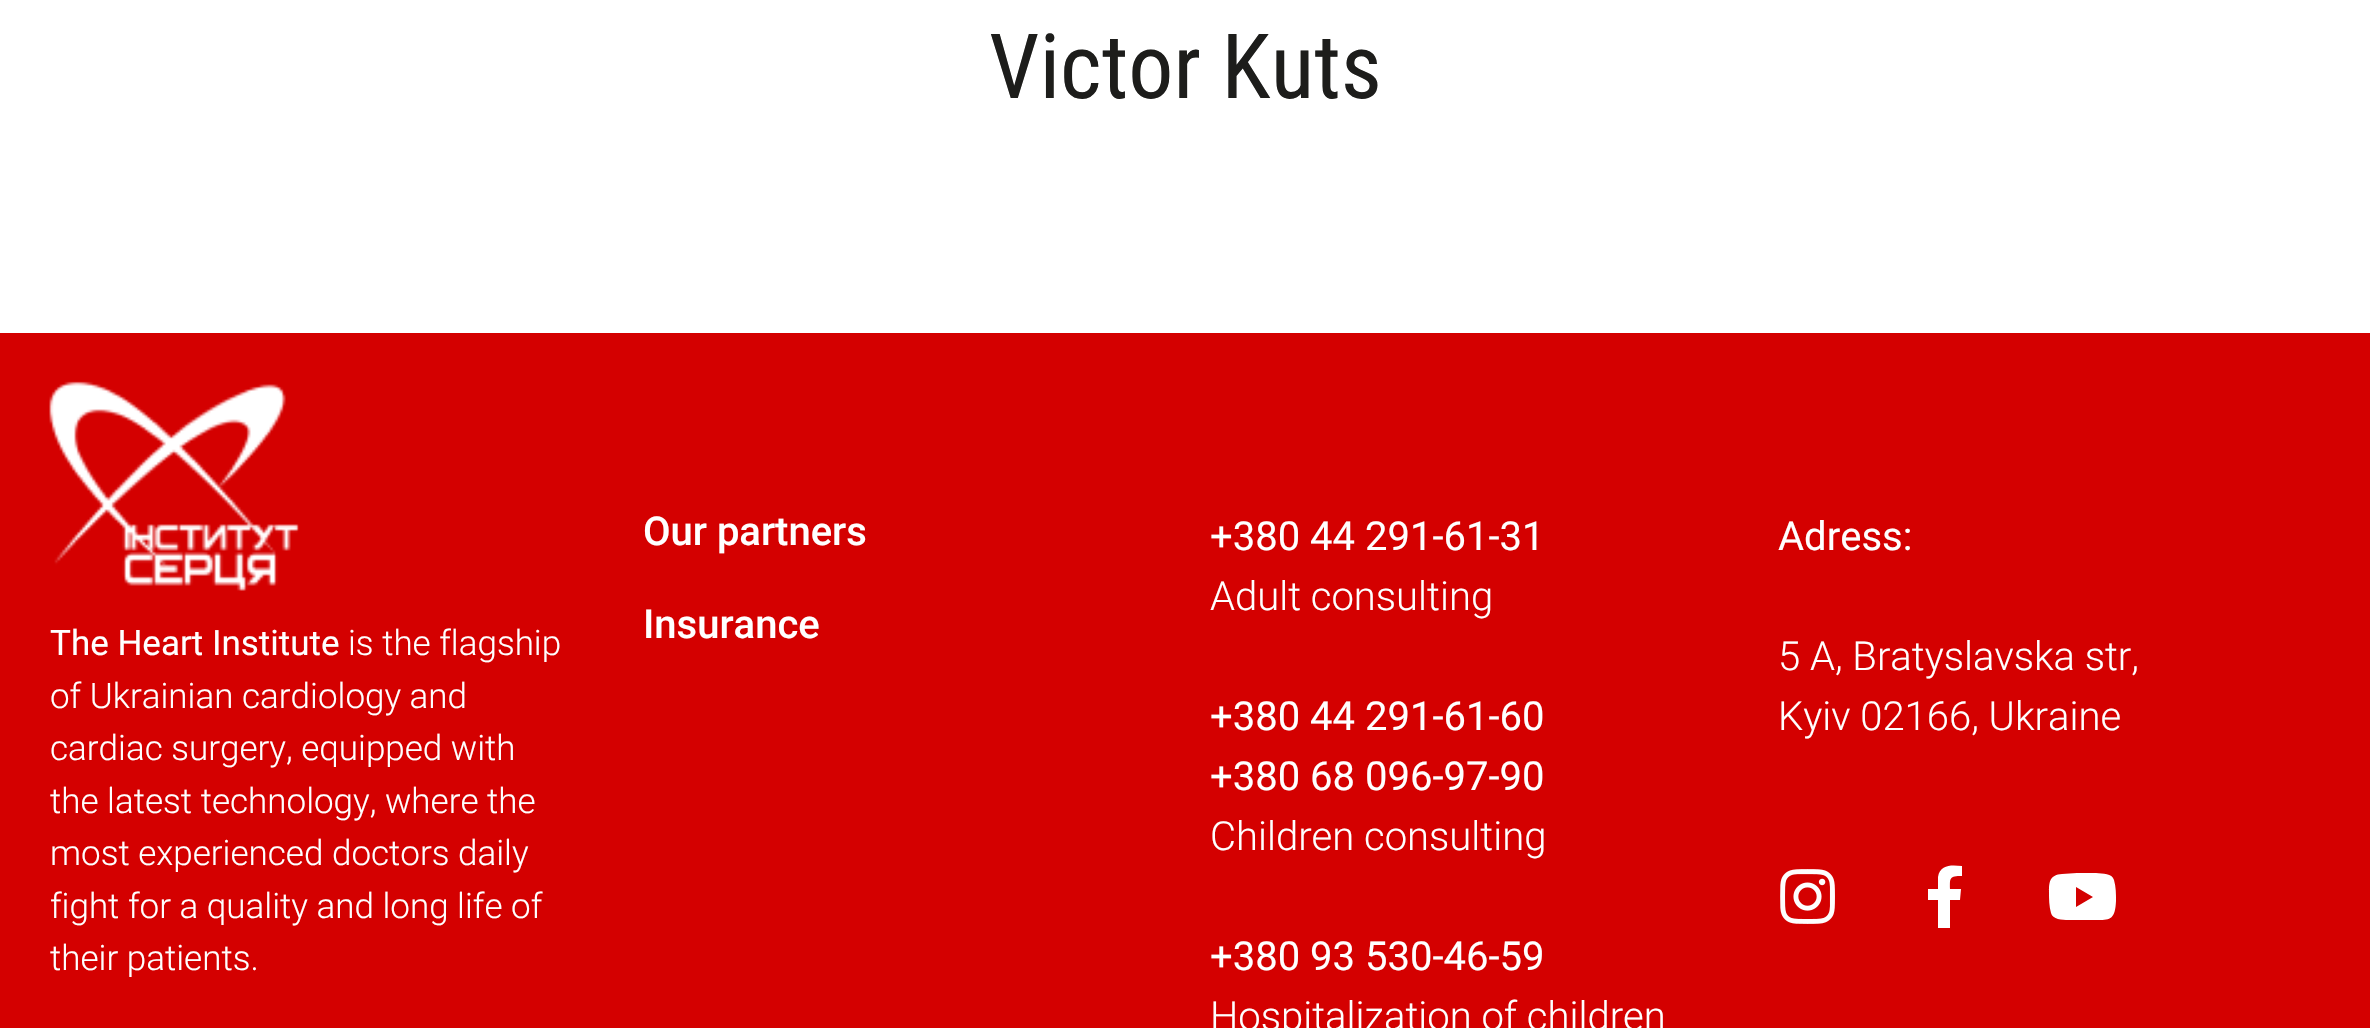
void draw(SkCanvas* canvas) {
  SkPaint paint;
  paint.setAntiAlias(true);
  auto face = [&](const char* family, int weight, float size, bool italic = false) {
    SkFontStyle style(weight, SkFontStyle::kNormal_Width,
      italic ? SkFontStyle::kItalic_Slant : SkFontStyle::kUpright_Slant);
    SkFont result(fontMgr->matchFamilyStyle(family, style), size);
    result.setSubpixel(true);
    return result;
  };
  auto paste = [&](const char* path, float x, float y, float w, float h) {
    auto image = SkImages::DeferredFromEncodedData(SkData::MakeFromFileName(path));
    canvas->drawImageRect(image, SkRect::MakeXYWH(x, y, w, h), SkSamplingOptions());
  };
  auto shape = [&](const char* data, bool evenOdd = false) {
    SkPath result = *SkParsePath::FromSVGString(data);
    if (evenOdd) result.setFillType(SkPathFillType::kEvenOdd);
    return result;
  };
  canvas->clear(0xffffffff);
  paint.setColor(0xffd40000);
  canvas->drawRect(SkRect::MakeXYWH(0, 333, 2370, 695), paint);
  paste("img/1.png", 49, 381, 250, 210);
  paste("img/2.png", 1780, 869, 55, 55);
  paint.setColor(0xffffffff);
  canvas->drawPath(shape("M1960 900H1950V928H1938V900H1928V889H1938V877C1940 864 1952 865 1962 866V876C1949 876 1950 878 1950 889H1961Z"), paint);
  canvas->drawPath(shape("M2114 880C2116 887 2116 894 2116 901C2115 922 2109 920 2090 920H2073C2067 920 2053 921 2051 913C2049 906 2049 899 2049 892C2049 881 2050 875 2062 874L2077 873H2096C2103 874 2112 873 2114 880ZM2076 907L2093 897L2076 887Z"), paint);
  auto f0 = face("Roboto Condensed", 400, 90);
  paint.setColor(0xff1d1d1b);
  canvas->drawString("Victor Kuts", 989, 98, f0, paint);
  auto f1 = face("Roboto", 400, 35);
  paint.setColor(0xffffffff);
  canvas->drawString("The Heart Institute", 50, 655, f1, paint);
  auto f2 = face("Roboto", 300, 35);
  {
    const struct { const char* s; float x, y; } items[] = {
      {"is the flagship", 348, 655},
      {"of Ukrainian cardiology and", 50, 708},
      {"cardiac surgery, equipped with", 50, 760},
      {"the latest technology, where the", 50, 813},
      {"most experienced doctors daily", 50, 865},
      {"fight for a quality and long life of", 50, 918},
      {"their patients.", 50, 970},
    };
    for (auto [s, x, y] : items) {
      canvas->drawString(s, x, y, f2, paint);
    }
  }
  auto f3 = face("Roboto", 500, 40);
  canvas->drawString("Our partners", 643, 545, f3, paint);
  canvas->drawString("Insurance", 643, 638, f3, paint);
  auto f4 = face("Roboto", 400, 40);
  canvas->drawString("+380 44 291-61-31", 1210, 550, f4, paint);
  auto f5 = face("Roboto", 300, 40);
  canvas->drawString("Adult consulting", 1210, 610, f5, paint);
  canvas->drawString("+380 44 291-61-60", 1210, 730, f4, paint);
  canvas->drawString("+380 68 096-97-90", 1210, 790, f4, paint);
  canvas->drawString("Children consulting", 1210, 850, f5, paint);
  canvas->drawString("+380 93 530-46-59", 1210, 970, f4, paint);
  canvas->drawString("Hospitalization of children", 1210, 1030, f5, paint);
  canvas->drawString("Adress:", 1778, 550, f4, paint);
  canvas->drawString("5 A, Bratyslavska str,", 1778, 670, f5, paint);
  canvas->drawString("Kyiv 02166, Ukraine", 1778, 730, f5, paint);
}
